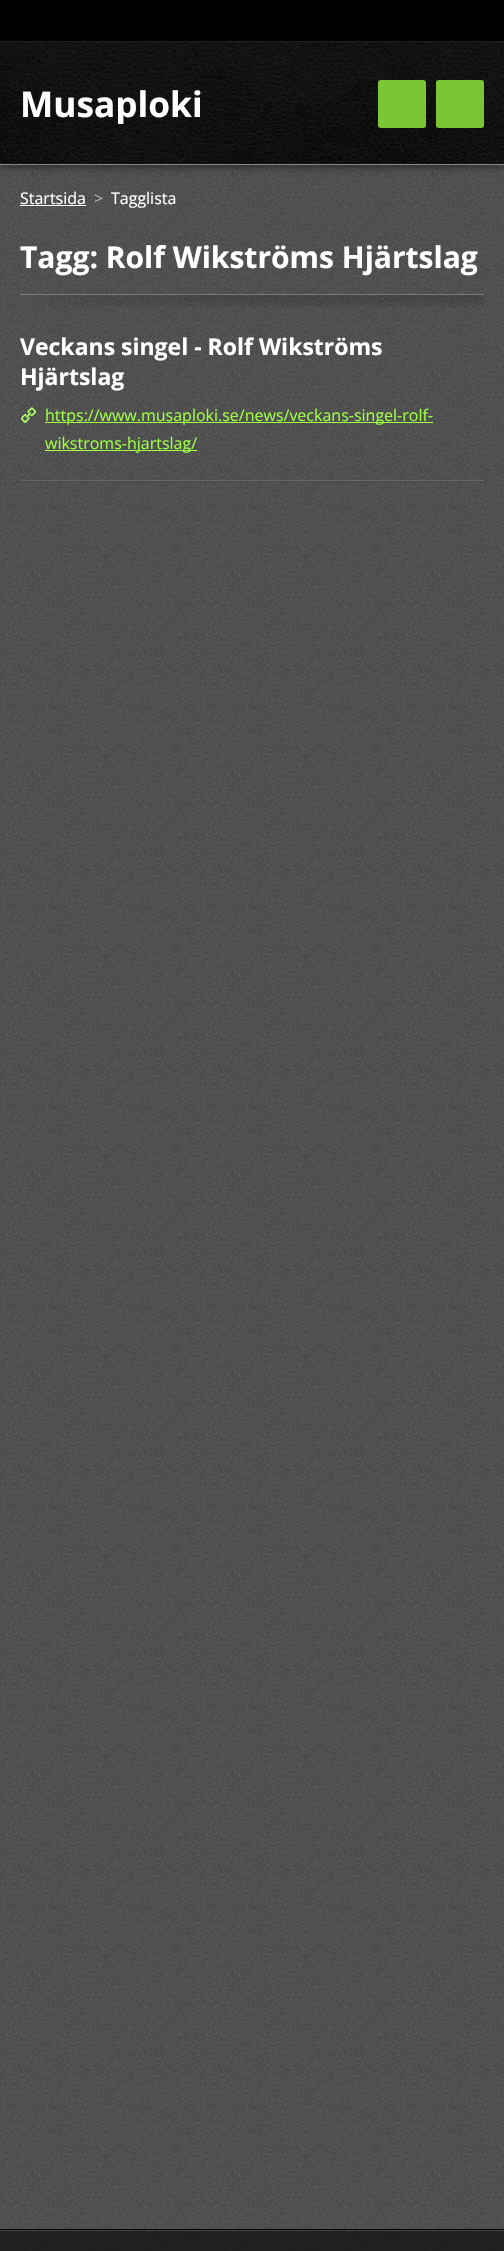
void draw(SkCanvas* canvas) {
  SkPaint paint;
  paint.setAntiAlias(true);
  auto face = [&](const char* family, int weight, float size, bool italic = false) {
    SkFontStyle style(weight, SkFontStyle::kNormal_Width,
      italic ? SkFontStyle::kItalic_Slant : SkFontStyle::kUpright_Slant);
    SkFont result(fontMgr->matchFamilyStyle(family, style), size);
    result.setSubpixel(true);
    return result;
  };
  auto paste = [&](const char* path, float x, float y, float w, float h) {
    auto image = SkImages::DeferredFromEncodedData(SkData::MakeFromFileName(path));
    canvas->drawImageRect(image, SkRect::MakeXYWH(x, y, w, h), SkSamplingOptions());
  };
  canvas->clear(0xffffffff);
  paste("img/1.png", 0, 165, 504, 2086);
  paint.setColor(0xff000000);
  canvas->drawRect(SkRect::MakeXYWH(0, 0, 504, 41), paint);
  paint.setColor(0xff303030);
  canvas->drawRect(SkRect::MakeXYWH(0, 41, 504, 1), paint);
  paint.setColor(0xb3000000);
  paint.setMaskFilter(SkMaskFilter::MakeBlur(kNormal_SkBlurStyle, 5));
  canvas->drawRect(SkRect::MakeXYWH(0, 42, 504, 123), paint);
  paint.setMaskFilter(nullptr);
  paste("img/2.png", 0, 42, 504, 122);
  paint.setColor(0xff8a8a8a);
  canvas->drawRect(SkRect::MakeXYWH(0, 164, 504, 1), paint);
  paint.setColor(0xff7bc635);
  canvas->drawRoundRect(SkRect::MakeXYWH(378, 80, 48, 48), 3, 3, paint);
  canvas->drawRoundRect(SkRect::MakeXYWH(436, 80, 48, 48), 3, 3, paint);
  paint.setColor(0xffffffff);
  canvas->drawRect(SkRect::MakeXYWH(20, 205, 66, 1), paint);
  paste("img/3.png", 20, 294, 464, 13);
  paste("img/4.png", 20, 480, 464, 2);
  paste("img/5.png", 21, 407, 15, 16);
  {
    const struct { float x, y, w, h; SkColor color; } items[] = {
      {45, 422, 388, 1, 0xff9eff44},
      {45, 450, 152, 1, 0xff9eff44},
      {0, 2229, 504, 1, 0xff000000},
      {0, 2231, 504, 20, 0x99000000},
      {0, 2230, 504, 1, 0xff464646},
    };
    for (auto [x, y, w, h, color] : items) {
      paint.setColor(color);
      canvas->drawRect(SkRect::MakeXYWH(x, y, w, h), paint);
    }
  }
  canvas->save();
  canvas->clipRect(SkRect::MakeXYWH(20, 82, 182, 42));
  auto f0 = face("Open Sans", 700, 35.25f);
  paint.setColor(0xffffffff);
  canvas->drawString("Musaploki", 20, 117, f0, paint);
  canvas->restore();
  auto f1 = face("Open Sans", 400, 16);
  canvas->drawString("Startsida", 20, 204, f1, paint);
  paint.setColor(0xffb3b3b3);
  canvas->drawString(">", 94, 204, f1, paint);
  paint.setColor(0xffffffff);
  canvas->drawString("Tagglista", 111, 204, f1, paint);
  auto f2 = face("Open Sans", 700, 30);
  canvas->drawString("Tagg: Rolf Wikströms Hjärtslag", 20, 268, f2, paint);
  auto f3 = face("Open Sans", 700, 23);
  canvas->drawString("Veckans singel - Rolf Wikströms", 20, 355, f3, paint);
  canvas->drawString("Hjärtslag", 20, 385, f3, paint);
  paint.setColor(0xff9eff44);
  canvas->drawString("https://www.musaploki.se/news/veckans-singel-rolf-", 45, 421, f1, paint);
  canvas->drawString("wikstroms-hjartslag/", 45, 449, f1, paint);
}
